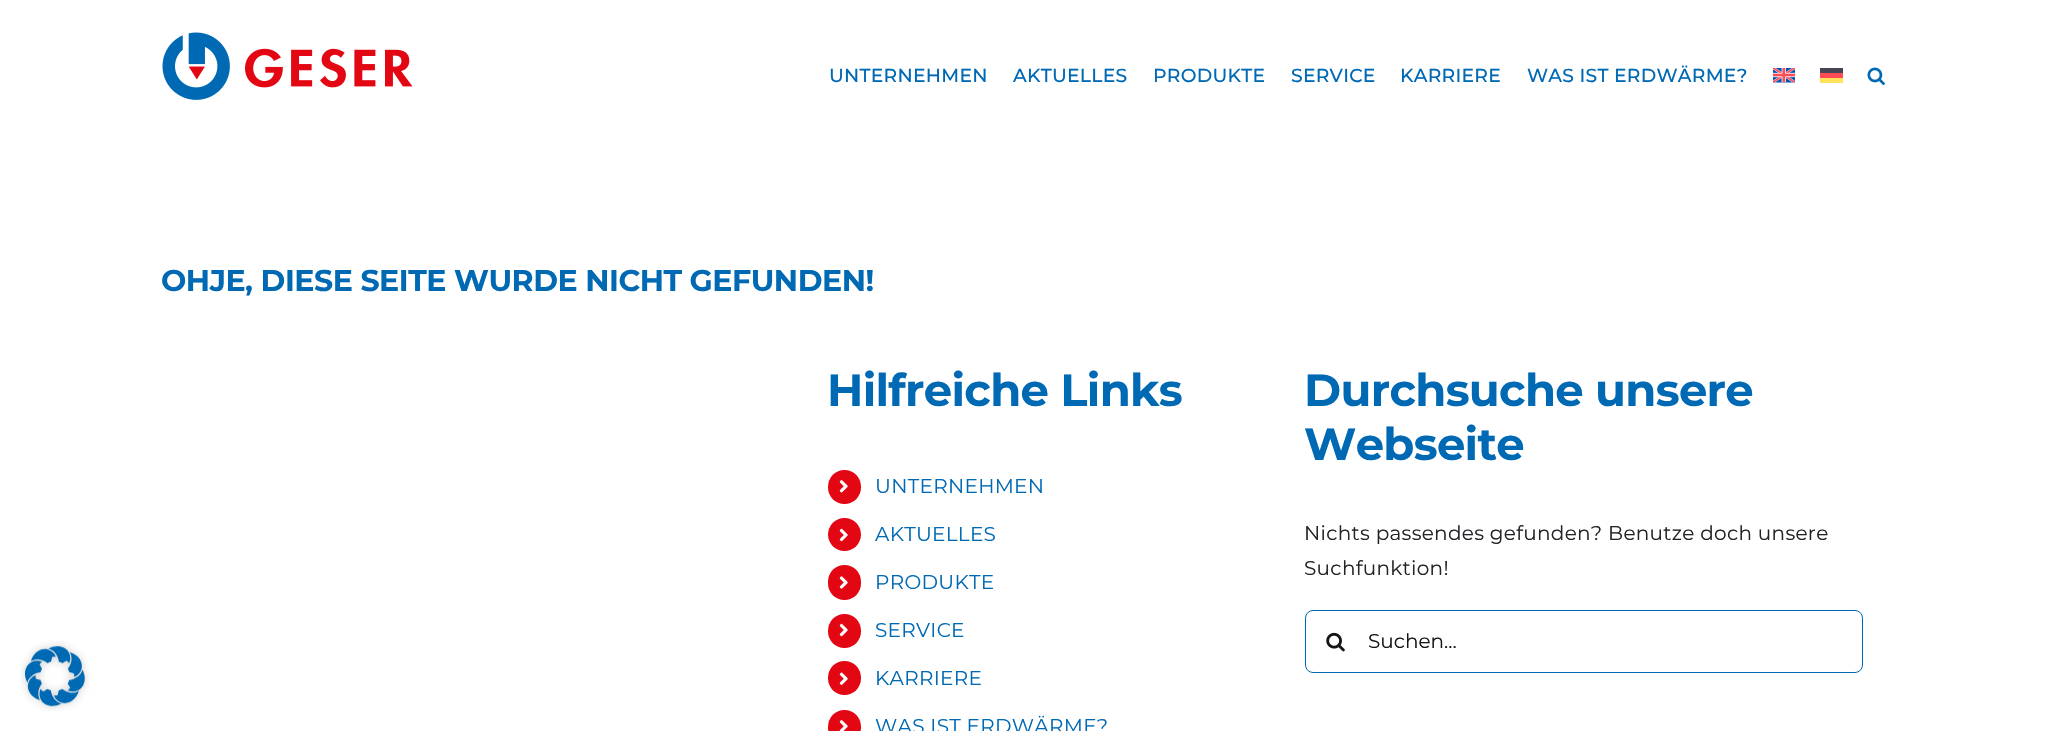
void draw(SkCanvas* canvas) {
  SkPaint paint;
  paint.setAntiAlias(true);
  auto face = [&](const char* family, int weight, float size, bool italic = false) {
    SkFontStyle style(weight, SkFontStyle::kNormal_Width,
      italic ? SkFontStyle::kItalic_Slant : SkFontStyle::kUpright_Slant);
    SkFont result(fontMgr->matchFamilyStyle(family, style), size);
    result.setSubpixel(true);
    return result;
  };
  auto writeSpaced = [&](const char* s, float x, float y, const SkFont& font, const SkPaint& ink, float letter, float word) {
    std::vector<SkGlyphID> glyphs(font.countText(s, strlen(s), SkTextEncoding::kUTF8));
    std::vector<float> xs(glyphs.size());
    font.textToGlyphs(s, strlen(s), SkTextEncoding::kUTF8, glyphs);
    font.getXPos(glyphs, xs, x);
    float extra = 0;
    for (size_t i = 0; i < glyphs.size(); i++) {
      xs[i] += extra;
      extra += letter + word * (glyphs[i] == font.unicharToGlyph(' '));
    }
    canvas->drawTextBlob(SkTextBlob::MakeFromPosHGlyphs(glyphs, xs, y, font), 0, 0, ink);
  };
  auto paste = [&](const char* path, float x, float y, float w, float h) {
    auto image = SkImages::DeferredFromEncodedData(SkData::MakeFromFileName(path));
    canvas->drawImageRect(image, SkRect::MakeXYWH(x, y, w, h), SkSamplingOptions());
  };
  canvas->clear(0xffffffff);
  paste("img/1.png", 20, 641, 70, 70);
  paste("img/2.png", 162, 32, 251, 68);
  paste("img/3.png", 1773, 68, 22, 15);
  {
    const struct { float x, y, w, h; SkColor color; } items[] = {
      {1820, 73, 23, 5, 0xffff4b55},
      {1820, 78, 23, 5, 0xffffe15a},
      {1820, 68, 23, 5, 0xff464655},
    };
    for (auto [x, y, w, h, color] : items) {
      paint.setColor(color);
      canvas->drawRect(SkRect::MakeXYWH(x, y, w, h), paint);
    }
  }
  paste("img/4.png", 1867, 67, 18, 18);
  paint.setColor(0xffe30613);
  canvas->drawRoundRect(SkRect::MakeXYWH(828, 470, 33, 34), 16.5f, 16.5f, paint);
  paste("img/5.png", 839, 480, 9, 13);
  canvas->drawCircle(844.5f, 534.5f, 16.5f, paint);
  paste("img/6.png", 839, 528, 9, 14);
  canvas->drawRoundRect(SkRect::MakeXYWH(828, 565, 33, 35), 16.5f, 16.5f, paint);
  paste("img/7.png", 839, 576, 9, 13);
  canvas->drawRoundRect(SkRect::MakeXYWH(828, 614, 33, 34), 16.5f, 16.5f, paint);
  paste("img/6.png", 839, 623, 9, 14);
  canvas->drawRoundRect(SkRect::MakeXYWH(828, 661, 33, 34), 16.5f, 16.5f, paint);
  paste("img/8.png", 839, 672, 9, 13);
  canvas->drawRoundRect(SkRect::MakeXYWH(828, 710, 33, 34), 16.5f, 16.5f, paint);
  paste("img/9.png", 839, 720, 9, 11);
  paint.setStroke(true);
  paint.setStrokeWidth(1);
  paint.setColor(0xff0069b4);
  canvas->drawRoundRect(SkRect::MakeXYWH(1305.5f, 610.5f, 557, 62), 7.5f, 7.5f, paint);
  paste("img/10.png", 1326, 632, 19, 20);
  auto f0 = face("Montserrat", 500, 18.75f);
  paint.setStroke(false);
  {
    const struct { const char* s; float x, y; } items[] = {
      {"UNTERNEHMEN", 829, 82},
      {"AKTUELLES", 1013, 82},
      {"PRODUKTE", 1153, 82},
      {"SERVICE", 1291, 82},
      {"KARRIERE", 1400, 82},
      {"WAS IST ERDWÄRME?", 1527, 82},
    };
    for (auto [s, x, y] : items) {
      writeSpaced(s, x, y, f0, paint, 0.25f, 0);
    }
  }
  auto f1 = face("Montserrat", 700, 30);
  writeSpaced("OHJE, DIESE SEITE WURDE NICHT GEFUNDEN!", 161, 291, f1, paint, -0.45f, 0);
  auto f2 = face("Montserrat", 700, 45);
  writeSpaced("Hilfreiche Links", 827, 406, f2, paint, -0.7f, 0);
  auto f3 = face("Montserrat", 400, 20);
  {
    const struct { const char* s; float x, y; } items[] = {
      {"UNTERNEHMEN", 875, 493},
      {"AKTUELLES", 875, 541},
      {"PRODUKTE", 875, 589},
      {"SERVICE", 875, 637},
      {"KARRIERE", 875, 685},
      {"WAS IST ERDWÄRME?", 875, 733},
    };
    for (auto [s, x, y] : items) {
      writeSpaced(s, x, y, f3, paint, 0.3f, 0);
    }
  }
  writeSpaced("Durchsuche unsere", 1304, 406, f2, paint, -0.7f, 0);
  writeSpaced("Webseite", 1304, 460, f2, paint, -0.7f, 0);
  paint.setColor(0xff212326);
  writeSpaced("Nichts passendes gefunden? Benutze doch unsere", 1304, 540, f3, paint, 0.3f, 0);
  writeSpaced("Suchfunktion!", 1304, 575, f3, paint, 0.3f, 0);
  paint.setColor(0xff141617);
  canvas->drawString("Suchen...", 1368, 648, f3, paint);
}
